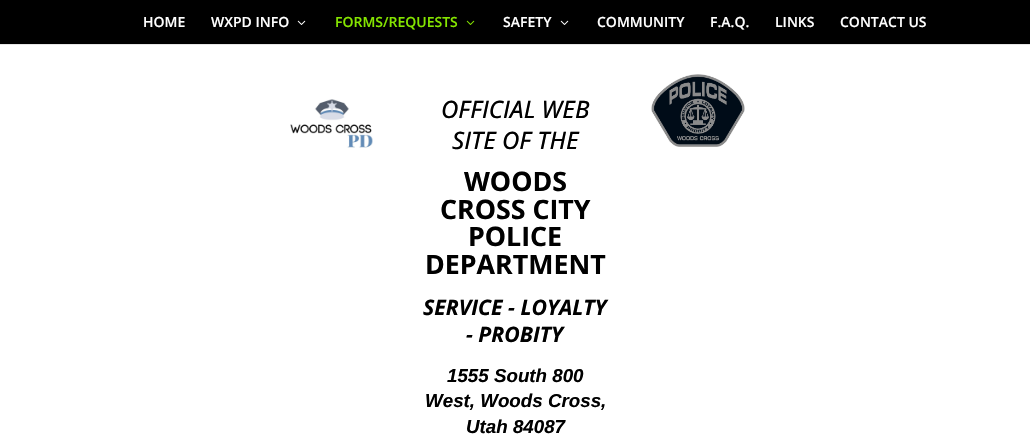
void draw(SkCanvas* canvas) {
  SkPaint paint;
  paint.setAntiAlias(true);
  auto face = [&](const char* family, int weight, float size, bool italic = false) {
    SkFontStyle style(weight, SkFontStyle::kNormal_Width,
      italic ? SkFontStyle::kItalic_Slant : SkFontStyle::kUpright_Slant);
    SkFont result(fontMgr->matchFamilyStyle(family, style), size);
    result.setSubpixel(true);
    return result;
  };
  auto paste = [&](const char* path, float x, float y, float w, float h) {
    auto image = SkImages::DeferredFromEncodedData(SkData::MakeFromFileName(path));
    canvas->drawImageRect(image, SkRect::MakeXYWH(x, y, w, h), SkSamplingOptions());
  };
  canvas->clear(0xffffffff);
  paint.setColor(0xffe6e6e6);
  canvas->drawRect(SkRect::MakeXYWH(0, 44, 1030, 1), paint);
  paint.setColor(0xff000000);
  canvas->drawRect(SkRect::MakeXYWH(0, 0, 1030, 44), paint);
  paste("img/1.png", 297, 20, 9, 5);
  paste("img/2.png", 466, 20, 9, 5);
  paste("img/1.png", 560, 20, 9, 5);
  paste("img/3.png", 290, 99, 83, 49);
  paste("img/4.png", 651, 74, 94, 73);
  auto f0 = face("Open Sans", 600, 14);
  paint.setColor(0xffffffff);
  canvas->drawString("HOME", 143, 27, f0, paint);
  canvas->drawString("WXPD INFO", 211, 27, f0, paint);
  paint.setColor(0xff85e500);
  canvas->drawString("FORMS/REQUESTS", 335, 27, f0, paint);
  paint.setColor(0xffffffff);
  {
    const struct { const char* s; float x, y; } items[] = {
      {"SAFETY", 503, 27},
      {"COMMUNITY", 597, 27},
      {"F.A.Q.", 710, 27},
      {"LINKS", 775, 27},
      {"CONTACT US", 840, 27},
    };
    for (auto [s, x, y] : items) {
      canvas->drawString(s, x, y, f0, paint);
    }
  }
  auto f1 = face("Open Sans", 500, 24, true);
  paint.setColor(0xff000000);
  canvas->drawString("OFFICIAL WEB", 441, 118, f1, paint);
  canvas->drawString("SITE OF THE", 452, 149, f1, paint);
  auto f2 = face("Open Sans", 700, 26.75f);
  {
    const struct { const char* s; float x, y; } items[] = {
      {"WOODS", 464, 191},
      {"CROSS CITY", 440, 219},
      {"POLICE", 468, 246},
      {"DEPARTMENT", 425, 274},
    };
    for (auto [s, x, y] : items) {
      canvas->drawString(s, x, y, f2, paint);
    }
  }
  auto f3 = face("Open Sans", 700, 21.25f, true);
  canvas->drawString("SERVICE - LOYALTY", 423, 315, f3, paint);
  canvas->drawString("- PROBITY", 466, 342, f3, paint);
  auto f4 = face("Liberation Sans", 700, 18.75f, true);
  {
    const struct { const char* s; float x, y; } items[] = {
      {"1555 South 800", 447, 382},
      {"West, Woods Cross,", 425, 407},
      {"Utah 84087", 466, 433},
    };
    for (auto [s, x, y] : items) {
      canvas->drawString(s, x, y, f4, paint);
    }
  }
}
